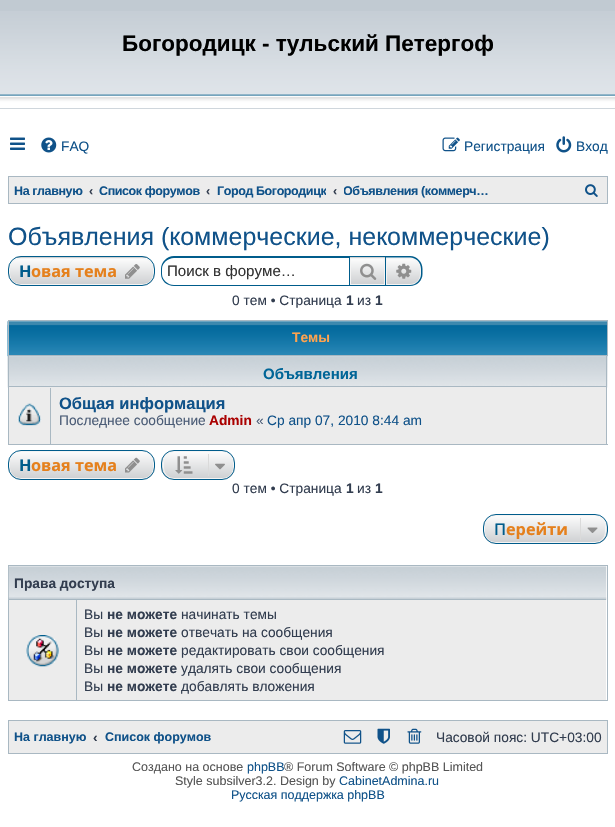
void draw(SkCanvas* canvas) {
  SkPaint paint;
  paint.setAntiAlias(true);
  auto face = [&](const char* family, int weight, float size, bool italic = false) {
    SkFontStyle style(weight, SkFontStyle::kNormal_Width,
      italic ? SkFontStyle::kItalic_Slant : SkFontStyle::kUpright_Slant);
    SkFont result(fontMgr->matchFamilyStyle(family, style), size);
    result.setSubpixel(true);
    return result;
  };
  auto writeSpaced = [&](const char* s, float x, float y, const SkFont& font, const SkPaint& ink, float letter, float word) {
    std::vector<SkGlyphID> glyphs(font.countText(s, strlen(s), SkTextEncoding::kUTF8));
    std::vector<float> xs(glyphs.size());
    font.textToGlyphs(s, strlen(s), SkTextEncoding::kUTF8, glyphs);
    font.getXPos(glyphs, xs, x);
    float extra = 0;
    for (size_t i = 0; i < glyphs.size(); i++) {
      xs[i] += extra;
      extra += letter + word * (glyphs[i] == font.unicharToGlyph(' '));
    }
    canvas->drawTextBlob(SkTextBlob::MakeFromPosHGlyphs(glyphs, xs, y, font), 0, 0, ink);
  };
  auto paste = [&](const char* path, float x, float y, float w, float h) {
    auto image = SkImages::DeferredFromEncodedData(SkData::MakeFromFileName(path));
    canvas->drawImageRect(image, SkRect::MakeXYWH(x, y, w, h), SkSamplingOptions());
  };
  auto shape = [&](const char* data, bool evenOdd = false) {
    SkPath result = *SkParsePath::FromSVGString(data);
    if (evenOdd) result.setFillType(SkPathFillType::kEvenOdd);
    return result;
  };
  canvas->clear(0xffffffff);
  paint.setColor(0xffc1cad2);
  canvas->drawRect(SkRect::MakeXYWH(0, 0, 615, 109), paint);
  paste("img/1.png", 0, 11, 615, 98);
  paste("img/2.png", 10, 137, 15, 13);
  paste("img/3.png", 41, 137, 16, 16);
  paste("img/4.png", 442, 137, 18, 15);
  paste("img/5.png", 556, 136, 16, 17);
  paint.setColor(0xffececec);
  canvas->drawRect(SkRect::MakeXYWH(8.5f, 176.5f, 599, 27), paint);
  paint.setStroke(true);
  paint.setStrokeWidth(1);
  paint.setColor(0xffa9b8c2);
  canvas->drawRect(SkRect::MakeXYWH(8.5f, 176.5f, 599, 27), paint);
  paste("img/6.png", 585, 184, 13, 13);
  canvas->save();
  canvas->clipPath(shape("M21 256H142C149 256 155 262 155 269V273C155 280 149 286 142 286H21C14 286 8 280 8 273V269C8 262 14 256 21 256Z"), true);
  paint.setStroke(false);
  {
    const SkColor colors[] = {0xfffdfdfd, 0xffcdcfd1};
    const float stops[] = {0, 1};
    const SkPoint ends[] = {{81, 230}, {81, 258}};
    paint.setShader(SkGradientShader::MakeLinear(ends, colors, stops, 2, SkTileMode::kClamp));
    paint.setAlpha(255);
  }
  canvas->drawRect(SkRect::MakeXYWH(8, 256, 147, 2), paint);
  {
    const SkColor colors[] = {0xfffdfdfd, 0xffcdcfd1};
    const float stops[] = {0, 1};
    const SkPoint ends[] = {{81, 258}, {81, 285}};
    paint.setShader(SkGradientShader::MakeLinear(ends, colors, stops, 2, SkTileMode::kClamp));
    paint.setAlpha(255);
  }
  canvas->drawRect(SkRect::MakeXYWH(8, 258, 147, 27), paint);
  canvas->restore();
  paint.setStroke(true);
  paint.setShader(nullptr);
  paint.setColor(0xfff4f4f4);
  canvas->drawRoundRect(SkRect::MakeXYWH(9.5f, 258.5f, 144, 26), 10.5f, 10.5f, paint);
  paint.setColor(0xff005c8b);
  canvas->drawRoundRect(SkRect::MakeXYWH(8.5f, 256.5f, 146, 29), 12.5f, 12.5f, paint);
  paste("img/7.png", 125, 264, 15, 15);
  paint.setStroke(false);
  canvas->drawPath(shape("M174 256H349V286H174C167 286 161 281 161 274V269C161 262 167 256 174 256ZM174 258H349V285H174C168 285 162 280 162 274V269C162 263 168 258 174 258Z", true), paint);
  {
    const SkColor colors[] = {0xfffdfdfd, 0xffcdcfd1};
    const float stops[] = {0, 1};
    const SkPoint ends[] = {{368, 230}, {368, 258}};
    paint.setShader(SkGradientShader::MakeLinear(ends, colors, stops, 2, SkTileMode::kClamp));
    paint.setAlpha(255);
  }
  canvas->drawRect(SkRect::MakeXYWH(349, 257, 37, 1), paint);
  {
    const SkColor colors[] = {0xfffdfdfd, 0xffcdcfd1};
    const float stops[] = {0, 1};
    const SkPoint ends[] = {{368, 258}, {368, 285}};
    paint.setShader(SkGradientShader::MakeLinear(ends, colors, stops, 2, SkTileMode::kClamp));
    paint.setAlpha(255);
  }
  canvas->drawRect(SkRect::MakeXYWH(351, 259, 33, 25), paint);
  paint.setStroke(true);
  paint.setShader(nullptr);
  paint.setColor(0xfff4f4f4);
  canvas->drawRect(SkRect::MakeXYWH(350.5f, 258.5f, 34, 26), paint);
  paint.setColor(0xff005c8b);
  canvas->drawRect(SkRect::MakeXYWH(349.5f, 256.5f, 36, 29), paint);
  paste("img/8.png", 360, 263, 17, 17);
  paint.setStroke(false);
  {
    const SkColor colors[] = {0xfffdfdfd, 0xffcdcfd1};
    const float stops[] = {0, 1};
    const SkPoint ends[] = {{404, 258}, {404, 285}};
    paint.setShader(SkGradientShader::MakeLinear(ends, colors, stops, 2, SkTileMode::kClamp));
    paint.setAlpha(255);
  }
  canvas->drawPath(shape("M386.5 258.5H410C416 258.5 420.5 263 420.5 269V274C420.5 280 416 284.5 410 284.5H386.5Z"), paint);
  paint.setStroke(true);
  paint.setShader(nullptr);
  paint.setColor(0xfff4f4f4);
  canvas->drawPath(shape("M386.5 258.5H410C416 258.5 420.5 263 420.5 269V274C420.5 280 416 284.5 410 284.5H386.5Z"), paint);
  paint.setStroke(false);
  paint.setColor(0xff005c8b);
  canvas->drawPath(shape("M386 256H410C417 256 422.5 262 422.5 269V274C422.5 280.5 417 286 410 286H386ZM386 257.5H410C416 257.5 421 262.5 421 269V274C421 280 416 285 410 285H386Z", true), paint);
  paste("img/9.png", 396, 263, 16, 16);
  paste("img/10.png", 7, 321, 601, 36);
  paint.setStroke(true);
  paint.setColor(0xffa9b8c2);
  canvas->drawRect(SkRect::MakeXYWH(8.5f, 320.5f, 599, 35), paint);
  paste("img/11.png", 7, 356, 601, 32);
  paint.setStroke(false);
  {
    const struct { float x, y, w, h; SkColor color; } items[] = {
      {606, 356, 1, 89, 0xffa9b8c2},
      {8, 444, 600, 1, 0xffa9b8c2},
      {8, 356, 1, 89, 0xffa9b8c2},
      {9, 387, 597, 57, 0xffececec},
      {9, 386, 597, 1, 0xffa9b8c2},
    };
    for (auto [x, y, w, h, color] : items) {
      paint.setColor(color);
      canvas->drawRect(SkRect::MakeXYWH(x, y, w, h), paint);
    }
  }
  paste("img/12.png", 17, 403, 25, 23);
  canvas->drawRect(SkRect::MakeXYWH(50, 388, 1, 56), paint);
  canvas->save();
  canvas->clipPath(shape("M21 450H142C149 450 155 456 155 463V467C155 474 149 480 142 480H21C14 480 8 474 8 467V463C8 456 14 450 21 450Z"), true);
  {
    const SkColor colors[] = {0xfffdfdfd, 0xffcdcfd1};
    const float stops[] = {0, 1};
    const SkPoint ends[] = {{81, 451}, {81, 479}};
    paint.setShader(SkGradientShader::MakeLinear(ends, colors, stops, 2, SkTileMode::kClamp));
    paint.setAlpha(255);
  }
  canvas->drawRect(SkRect::MakeXYWH(8, 451, 147, 28), paint);
  canvas->restore();
  paint.setStroke(true);
  paint.setShader(nullptr);
  paint.setColor(0xfff4f4f4);
  canvas->drawRoundRect(SkRect::MakeXYWH(9.5f, 451.5f, 144, 27), 10.5f, 10.5f, paint);
  paint.setColor(0xff005c8b);
  canvas->drawRoundRect(SkRect::MakeXYWH(8.5f, 450.5f, 146, 29), 12.5f, 12.5f, paint);
  paste("img/13.png", 125, 457, 15, 16);
  canvas->save();
  canvas->clipPath(shape("M174 450H222C229 450 235 456 235 463V467C235 474 229 480 222 480H174C167 480 161 474 161 467V463C161 456 167 450 174 450Z"), true);
  paint.setStroke(false);
  {
    const SkColor colors[] = {0xfffdfdfd, 0xffcdcfd1};
    const float stops[] = {0, 1};
    const SkPoint ends[] = {{198, 451}, {198, 479}};
    paint.setShader(SkGradientShader::MakeLinear(ends, colors, stops, 2, SkTileMode::kClamp));
    paint.setAlpha(255);
  }
  canvas->drawRect(SkRect::MakeXYWH(161, 451, 74, 28), paint);
  canvas->restore();
  paint.setStroke(true);
  paint.setShader(nullptr);
  paint.setColor(0xfff4f4f4);
  canvas->drawRoundRect(SkRect::MakeXYWH(163.5f, 451.5f, 70, 27), 10.5f, 10.5f, paint);
  paint.setColor(0xff005c8b);
  canvas->drawRoundRect(SkRect::MakeXYWH(161.5f, 450.5f, 73, 29), 12.5f, 12.5f, paint);
  paste("img/14.png", 175, 456, 18, 18);
  paint.setStroke(false);
  paint.setColor(0xffdadada);
  canvas->drawRect(SkRect::MakeXYWH(208, 454, 1, 22), paint);
  paste("img/15.png", 215, 463, 10, 7);
  canvas->save();
  canvas->clipPath(shape("M496 514H595C602 514 608 520 608 527V531C608 538 602 544 595 544H496C489 544 483 538 483 531V527C483 520 489 514 496 514Z"), true);
  {
    const SkColor colors[] = {0xfffdfdfd, 0xffcdcfd1};
    const float stops[] = {0, 1};
    const SkPoint ends[] = {{545, 515}, {545, 543}};
    paint.setShader(SkGradientShader::MakeLinear(ends, colors, stops, 2, SkTileMode::kClamp));
    paint.setAlpha(255);
  }
  canvas->drawRect(SkRect::MakeXYWH(483, 515, 125, 28), paint);
  canvas->restore();
  paint.setStroke(true);
  paint.setShader(nullptr);
  paint.setColor(0xfff4f4f4);
  canvas->drawRoundRect(SkRect::MakeXYWH(484.5f, 515.5f, 121, 27), 10.5f, 10.5f, paint);
  paint.setColor(0xff005c8b);
  canvas->drawRoundRect(SkRect::MakeXYWH(483.5f, 514.5f, 124, 29), 12.5f, 12.5f, paint);
  paint.setStroke(false);
  paint.setColor(0xffdadada);
  canvas->drawRect(SkRect::MakeXYWH(580, 518, 1, 22), paint);
  paste("img/16.png", 587, 527, 11, 6);
  paint.setStroke(true);
  paint.setColor(0xffa9b8c2);
  canvas->drawRect(SkRect::MakeXYWH(8.5f, 565.5f, 599, 135), paint);
  paste("img/17.png", 8, 566, 599, 34);
  paint.setStroke(false);
  canvas->drawRect(SkRect::MakeXYWH(9, 599, 597, 1), paint);
  paint.setColor(0xffececec);
  canvas->drawRect(SkRect::MakeXYWH(9, 600, 597, 100), paint);
  paste("img/18.png", 26, 635, 33, 32);
  paint.setColor(0xffa9b8c2);
  canvas->drawRect(SkRect::MakeXYWH(76, 600, 1, 100), paint);
  paint.setColor(0xffececec);
  canvas->drawRect(SkRect::MakeXYWH(8.5f, 720.5f, 599, 33), paint);
  paint.setStroke(true);
  paint.setColor(0xffa9b8c2);
  canvas->drawRect(SkRect::MakeXYWH(8.5f, 720.5f, 599, 33), paint);
  paste("img/19.png", 343, 730, 19, 14);
  paste("img/20.png", 377, 728, 13, 16);
  paste("img/21.png", 407, 728, 15, 16);
  auto f0 = face("Liberation Sans", 700, 22.5f);
  paint.setStroke(false);
  paint.setColor(0xff000000);
  canvas->drawString("Богородицк - тульский Петергоф", 122, 51, f0, paint);
  auto f1 = face("Liberation Sans", 400, 13.75f);
  paint.setColor(0xff105289);
  {
    const struct { const char* s; float x, y; } items[] = {
      {"FAQ", 61, 151},
      {"Регистрация", 464, 151},
      {"Вход", 576, 151},
    };
    for (auto [s, x, y] : items) {
      canvas->drawString(s, x, y, f1, paint);
    }
  }
  auto f2 = face("Liberation Sans", 700, 12.5f);
  writeSpaced("На главную", 14, 195, f2, paint, -0.4f, 0);
  paint.setColor(0xff323d4f);
  canvas->drawString("‹", 89, 195, f2, paint);
  paint.setColor(0xff105289);
  writeSpaced("Список форумов", 99, 195, f2, paint, -0.4f, 0);
  paint.setColor(0xff323d4f);
  canvas->drawString("‹", 206, 195, f2, paint);
  canvas->save();
  canvas->clipRect(SkRect::MakeXYWH(216, 184, 110, 14));
  paint.setColor(0xff105289);
  writeSpaced("Город Богородицк", 217, 195, f2, paint, -0.4f, 0);
  canvas->restore();
  paint.setColor(0xff323d4f);
  canvas->drawString("‹", 333, 195, f2, paint);
  canvas->save();
  canvas->clipRect(SkRect::MakeXYWH(344, 184, 150, 14));
  paint.setColor(0xff105289);
  writeSpaced("Объявления (коммерч…", 343, 195, f2, paint, -0.4f, 0);
  canvas->restore();
  auto f3 = face("Liberation Sans", 400, 25);
  canvas->drawString("Объявления (коммерческие, некоммерческие)", 8, 245, f3, paint);
  auto f4 = face("Noto Sans", 700, 16.25f);
  paint.setColor(0xff005c8b);
  canvas->drawString("Н", 19, 277, f4, paint);
  auto f5 = face("Open Sans", 700, 16.25f);
  paint.setColor(0xffe5801c);
  canvas->drawString("овая тема", 31, 277, f5, paint);
  auto f6 = face("Liberation Sans", 400, 15.1f);
  paint.setColor(0xff333333);
  canvas->drawString("Поиск в форуме…", 167, 276, f6, paint);
  paint.setColor(0xff323d4f);
  canvas->drawString("0 тем • Страница", 232, 305, f1, paint);
  auto f7 = face("Liberation Sans", 700, 13.75f);
  canvas->drawString("1", 346, 305, f7, paint);
  canvas->drawString("из", 357, 305, f1, paint);
  canvas->drawString("1", 375, 305, f7, paint);
  paint.setColor(0xffffa34f);
  canvas->drawString("Темы", 292, 342, f7, paint);
  auto f8 = face("Liberation Sans", 700, 15);
  paint.setColor(0xff006597);
  canvas->drawString("Объявления", 263, 379, f8, paint);
  auto f9 = face("Liberation Sans", 700, 16.5f);
  paint.setColor(0xff105289);
  canvas->drawString("Общая информация", 59, 409, f9, paint);
  paint.setColor(0xff4c5d77);
  canvas->drawString("Последнее сообщение", 59, 425, f1, paint);
  paint.setColor(0xffaa0000);
  canvas->drawString("Admin", 209, 425, f7, paint);
  paint.setColor(0xff4c5d77);
  canvas->drawString("«", 256, 425, f1, paint);
  paint.setColor(0xff105289);
  canvas->drawString("Ср апр 07, 2010 8:44 am", 267, 425, f1, paint);
  paint.setColor(0xff005c8b);
  canvas->drawString("Н", 19, 471, f4, paint);
  paint.setColor(0xffe5801c);
  canvas->drawString("овая тема", 31, 471, f5, paint);
  paint.setColor(0xff323d4f);
  canvas->drawString("0 тем • Страница", 232, 493, f1, paint);
  canvas->drawString("1", 346, 493, f7, paint);
  canvas->drawString("из", 357, 493, f1, paint);
  canvas->drawString("1", 375, 493, f7, paint);
  auto f10 = face("Noto Sans", 500, 16.25f);
  paint.setColor(0xff005c8b);
  canvas->drawString("П", 494, 535, f10, paint);
  paint.setColor(0xffe5801c);
  canvas->drawString("ерейти", 506, 535, f5, paint);
  paint.setColor(0xff323d4f);
  canvas->drawString("Права доступа", 14, 588, f7, paint);
  canvas->drawString("Вы", 84, 619, f1, paint);
  canvas->drawString("не можете", 107, 619, f7, paint);
  canvas->drawString("начинать темы", 181, 619, f1, paint);
  canvas->drawString("Вы", 84, 637, f1, paint);
  canvas->drawString("не можете", 107, 637, f7, paint);
  canvas->drawString("отвечать на сообщения", 181, 637, f1, paint);
  canvas->drawString("Вы", 84, 655, f1, paint);
  canvas->drawString("не можете", 107, 655, f7, paint);
  canvas->drawString("редактировать свои сообщения", 181, 655, f1, paint);
  canvas->drawString("Вы", 84, 673, f1, paint);
  canvas->drawString("не можете", 107, 673, f7, paint);
  canvas->drawString("удалять свои сообщения", 181, 673, f1, paint);
  canvas->drawString("Вы", 84, 691, f1, paint);
  canvas->drawString("не можете", 107, 691, f7, paint);
  canvas->drawString("добавлять вложения", 181, 691, f1, paint);
  paint.setColor(0xff105289);
  canvas->drawString("На главную", 14, 741, f2, paint);
  paint.setColor(0xff323d4f);
  canvas->drawString("‹", 93, 742, f7, paint);
  paint.setColor(0xff105289);
  canvas->drawString("Список форумов", 105, 741, f2, paint);
  paint.setColor(0xff323d4f);
  canvas->drawString("Часовой пояс: UTC+03:00", 436, 742, f1, paint);
  auto f11 = face("Liberation Sans", 400, 12.5f);
  paint.setColor(0xff555555);
  canvas->drawString("Создано на основе", 132, 771, f11, paint);
  paint.setColor(0xff105289);
  canvas->drawString("phpBB", 247, 771, f11, paint);
  paint.setColor(0xff555555);
  canvas->drawString("® Forum Software © phpBB Limited", 284, 771, f11, paint);
  canvas->drawString("Style subsilver3.2. Design by", 175, 785, f11, paint);
  paint.setColor(0xff105289);
  canvas->drawString("CabinetAdmina.ru", 339, 785, f11, paint);
  canvas->drawString("Русская поддержка phpBB", 231, 799, f11, paint);
}
